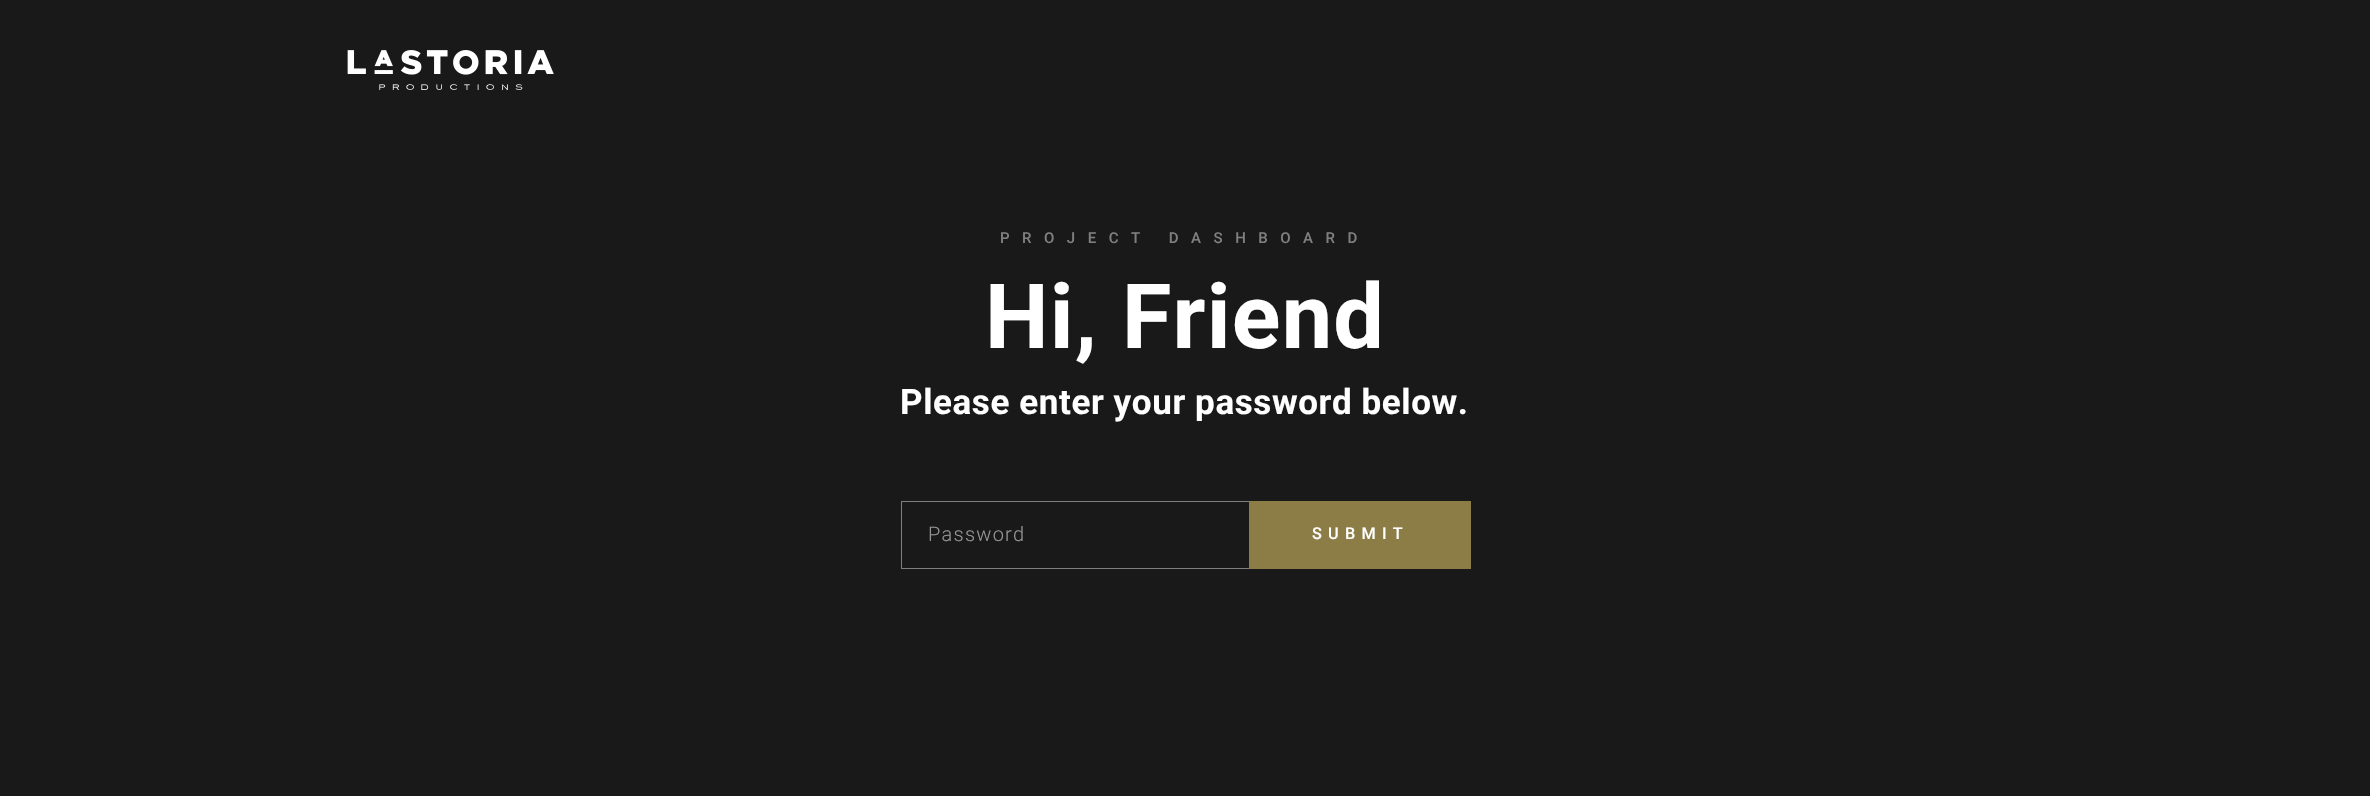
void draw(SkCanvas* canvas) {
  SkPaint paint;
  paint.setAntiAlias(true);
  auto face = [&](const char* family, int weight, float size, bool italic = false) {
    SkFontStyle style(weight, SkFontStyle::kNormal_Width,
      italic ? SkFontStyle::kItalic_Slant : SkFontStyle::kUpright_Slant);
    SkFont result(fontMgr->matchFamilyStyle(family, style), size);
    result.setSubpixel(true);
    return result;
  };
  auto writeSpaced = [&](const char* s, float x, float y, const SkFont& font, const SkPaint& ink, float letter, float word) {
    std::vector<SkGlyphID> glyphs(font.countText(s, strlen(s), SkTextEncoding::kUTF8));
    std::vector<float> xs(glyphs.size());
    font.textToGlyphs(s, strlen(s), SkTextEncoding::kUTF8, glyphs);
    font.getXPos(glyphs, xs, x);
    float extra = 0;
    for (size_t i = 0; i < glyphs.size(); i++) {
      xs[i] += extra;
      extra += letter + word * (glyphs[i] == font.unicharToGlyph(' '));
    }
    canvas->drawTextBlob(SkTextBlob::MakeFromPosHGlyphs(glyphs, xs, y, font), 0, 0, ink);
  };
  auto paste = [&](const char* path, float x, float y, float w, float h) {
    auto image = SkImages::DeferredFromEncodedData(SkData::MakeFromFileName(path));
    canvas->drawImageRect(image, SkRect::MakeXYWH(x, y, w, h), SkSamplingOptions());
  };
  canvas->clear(0xff1a1919);
  paste("img/1.png", 347, 50, 207, 40);
  {
    const struct { float x, y, w, h; SkColor color; } items[] = {
      {901, 501, 348, 1, 0xff7f7f7f},
      {901, 568, 348, 1, 0xff7f7f7f},
      {901, 501, 1, 68, 0xff7f7f7f},
      {1249, 501, 222, 68, 0xff8c7c46},
    };
    for (auto [x, y, w, h, color] : items) {
      paint.setColor(color);
      canvas->drawRect(SkRect::MakeXYWH(x, y, w, h), paint);
    }
  }
  auto f0 = face("Roboto", 500, 15);
  paint.setColor(0xff7f7f7f);
  writeSpaced("PROJECT DASHBOARD", 1000, 243, f0, paint, 12.5f, 0);
  auto f1 = face("Roboto", 700, 90);
  paint.setColor(0xffffffff);
  writeSpaced("Hi, Friend", 985, 348, f1, paint, 1.25f, 0);
  auto f2 = face("Roboto", 700, 35);
  writeSpaced("Please enter your password below.", 900, 414, f2, paint, 0.6f, 0);
  auto f3 = face("Roboto", 300, 20);
  paint.setColor(0xff969595);
  writeSpaced("Password", 928, 541, f3, paint, 1.25f, 0);
  auto f4 = face("Roboto", 500, 16.25f);
  paint.setColor(0xffffffff);
  writeSpaced("SUBMIT", 1312, 539, f4, paint, 6.25f, 0);
}
